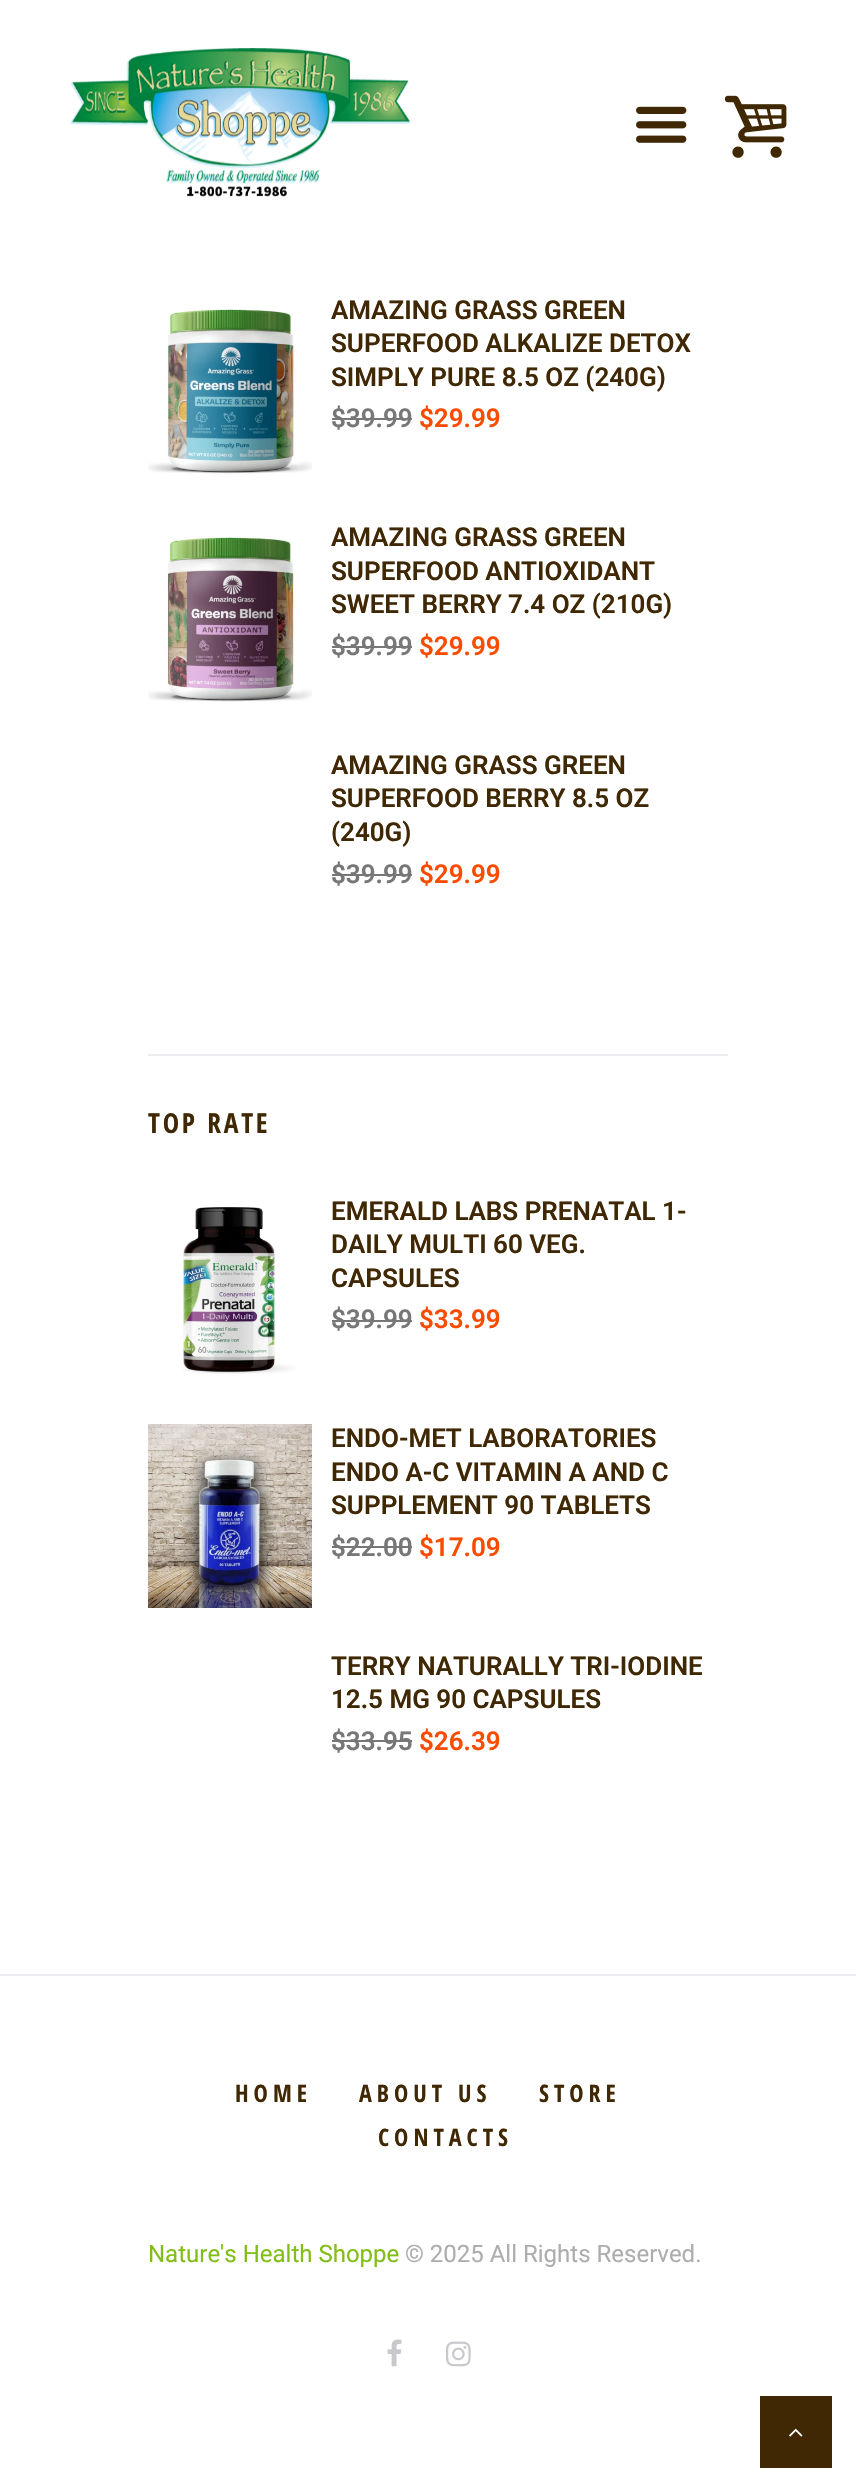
void draw(SkCanvas* canvas) {
  SkPaint paint;
  paint.setAntiAlias(true);
  auto face = [&](const char* family, int weight, float size, bool italic = false) {
    SkFontStyle style(weight, SkFontStyle::kNormal_Width,
      italic ? SkFontStyle::kItalic_Slant : SkFontStyle::kUpright_Slant);
    SkFont result(fontMgr->matchFamilyStyle(family, style), size);
    result.setSubpixel(true);
    return result;
  };
  auto writeSpaced = [&](const char* s, float x, float y, const SkFont& font, const SkPaint& ink, float letter, float word) {
    std::vector<SkGlyphID> glyphs(font.countText(s, strlen(s), SkTextEncoding::kUTF8));
    std::vector<float> xs(glyphs.size());
    font.textToGlyphs(s, strlen(s), SkTextEncoding::kUTF8, glyphs);
    font.getXPos(glyphs, xs, x);
    float extra = 0;
    for (size_t i = 0; i < glyphs.size(); i++) {
      xs[i] += extra;
      extra += letter + word * (glyphs[i] == font.unicharToGlyph(' '));
    }
    canvas->drawTextBlob(SkTextBlob::MakeFromPosHGlyphs(glyphs, xs, y, font), 0, 0, ink);
  };
  auto paste = [&](const char* path, float x, float y, float w, float h) {
    auto image = SkImages::DeferredFromEncodedData(SkData::MakeFromFileName(path));
    canvas->drawImageRect(image, SkRect::MakeXYWH(x, y, w, h), SkSamplingOptions());
  };
  canvas->clear(0xffffffff);
  paste("img/1.png", 70, 48, 340, 149);
  paste("img/2.png", 636, 106, 51, 37);
  paste("img/3.png", 724, 95, 63, 63);
  paste("img/4.png", 148, 309, 164, 165);
  paint.setColor(0xff777777);
  canvas->drawRect(SkRect::MakeXYWH(332, 418, 80, 2), paint);
  paste("img/5.png", 148, 537, 164, 165);
  {
    const struct { float x, y, w, h; SkColor color; } items[] = {
      {332, 646, 80, 2, 0xff777777},
      {332, 874, 80, 2, 0xff777777},
      {148, 1054, 580, 2, 0xffebedf0},
    };
    for (auto [x, y, w, h, color] : items) {
      paint.setColor(color);
      canvas->drawRect(SkRect::MakeXYWH(x, y, w, h), paint);
    }
  }
  paste("img/6.png", 183, 1207, 113, 167);
  paint.setColor(0xff777777);
  canvas->drawRect(SkRect::MakeXYWH(332, 1320, 80, 2), paint);
  paste("img/7.png", 148, 1424, 164, 184);
  {
    const struct { float x, y, w, h; SkColor color; } items[] = {
      {332, 1546, 80, 2, 0xff777777},
      {332, 1740, 80, 2, 0xff777777},
      {0, 1974, 856, 2, 0xffebedf0},
    };
    for (auto [x, y, w, h, color] : items) {
      paint.setColor(color);
      canvas->drawRect(SkRect::MakeXYWH(x, y, w, h), paint);
    }
  }
  paste("img/8.png", 387, 2339, 15, 28);
  paste("img/9.png", 446, 2341, 25, 26);
  paint.setColor(0xff3f2803);
  canvas->drawRect(SkRect::MakeXYWH(760, 2396, 72, 72), paint);
  paste("img/10.png", 789, 2428, 14, 9);
  auto f0 = face("Roboto", 600, 26);
  {
    const struct { const char* s; float x, y; } items[] = {
      {"AMAZING GRASS GREEN", 331, 319},
      {"SUPERFOOD ALKALIZE DETOX", 331, 352},
      {"SIMPLY PURE 8.5 OZ (240G)", 331, 386},
    };
    for (auto [s, x, y] : items) {
      canvas->drawString(s, x, y, f0, paint);
    }
  }
  paint.setColor(0xff777777);
  canvas->drawString("$39.99", 331, 427, f0, paint);
  paint.setColor(0xfff94c00);
  canvas->drawString("$29.99", 419, 427, f0, paint);
  paint.setColor(0xff3f2803);
  {
    const struct { const char* s; float x, y; } items[] = {
      {"AMAZING GRASS GREEN", 331, 546},
      {"SUPERFOOD ANTIOXIDANT", 331, 580},
      {"SWEET BERRY 7.4 OZ (210G)", 331, 613},
    };
    for (auto [s, x, y] : items) {
      canvas->drawString(s, x, y, f0, paint);
    }
  }
  paint.setColor(0xff777777);
  canvas->drawString("$39.99", 331, 655, f0, paint);
  paint.setColor(0xfff94c00);
  canvas->drawString("$29.99", 419, 655, f0, paint);
  paint.setColor(0xff3f2803);
  {
    const struct { const char* s; float x, y; } items[] = {
      {"AMAZING GRASS GREEN", 331, 774},
      {"SUPERFOOD BERRY 8.5 OZ", 331, 807},
      {"(240G)", 331, 841},
    };
    for (auto [s, x, y] : items) {
      canvas->drawString(s, x, y, f0, paint);
    }
  }
  paint.setColor(0xff777777);
  canvas->drawString("$39.99", 331, 883, f0, paint);
  paint.setColor(0xfff94c00);
  canvas->drawString("$29.99", 419, 883, f0, paint);
  auto f1 = face("Open Sans Condensed", 700, 27.5f);
  paint.setColor(0xff3f2803);
  writeSpaced("TOP RATE", 148, 1133, f1, paint, 2.75f, 0);
  {
    const struct { const char* s; float x, y; } items[] = {
      {"EMERALD LABS PRENATAL 1-", 331, 1220},
      {"DAILY MULTI 60 VEG.", 331, 1253},
      {"CAPSULES", 331, 1287},
    };
    for (auto [s, x, y] : items) {
      canvas->drawString(s, x, y, f0, paint);
    }
  }
  paint.setColor(0xff777777);
  canvas->drawString("$39.99", 331, 1328, f0, paint);
  paint.setColor(0xfff94c00);
  canvas->drawString("$33.99", 419, 1328, f0, paint);
  paint.setColor(0xff3f2803);
  {
    const struct { const char* s; float x, y; } items[] = {
      {"ENDO-MET LABORATORIES", 331, 1447},
      {"ENDO A-C VITAMIN A AND C", 331, 1481},
      {"SUPPLEMENT 90 TABLETS", 331, 1514},
    };
    for (auto [s, x, y] : items) {
      canvas->drawString(s, x, y, f0, paint);
    }
  }
  paint.setColor(0xff777777);
  canvas->drawString("$22.00", 331, 1556, f0, paint);
  paint.setColor(0xfff94c00);
  canvas->drawString("$17.09", 419, 1556, f0, paint);
  paint.setColor(0xff3f2803);
  canvas->drawString("TERRY NATURALLY TRI-IODINE", 331, 1675, f0, paint);
  canvas->drawString("12.5 MG 90 CAPSULES", 331, 1708, f0, paint);
  paint.setColor(0xff777777);
  canvas->drawString("$33.95", 331, 1750, f0, paint);
  paint.setColor(0xfff94c00);
  canvas->drawString("$26.39", 419, 1750, f0, paint);
  auto f2 = face("Open Sans Condensed", 700, 24);
  paint.setColor(0xff3f2803);
  {
    const struct { const char* s; float x, y; } items[] = {
      {"HOME", 235, 2102},
      {"ABOUT US", 359, 2102},
      {"STORE", 539, 2102},
      {"CONTACTS", 378, 2146},
    };
    for (auto [s, x, y] : items) {
      writeSpaced(s, x, y, f2, paint, 5, 0);
    }
  }
  auto f3 = face("Roboto", 400, 24);
  paint.setColor(0xff81be17);
  canvas->drawString("Nature's Health Shoppe", 148, 2262, f3, paint);
  paint.setColor(0xffadadad);
  canvas->drawString("© 2025 All Rights Reserved.", 405, 2262, f3, paint);
}
